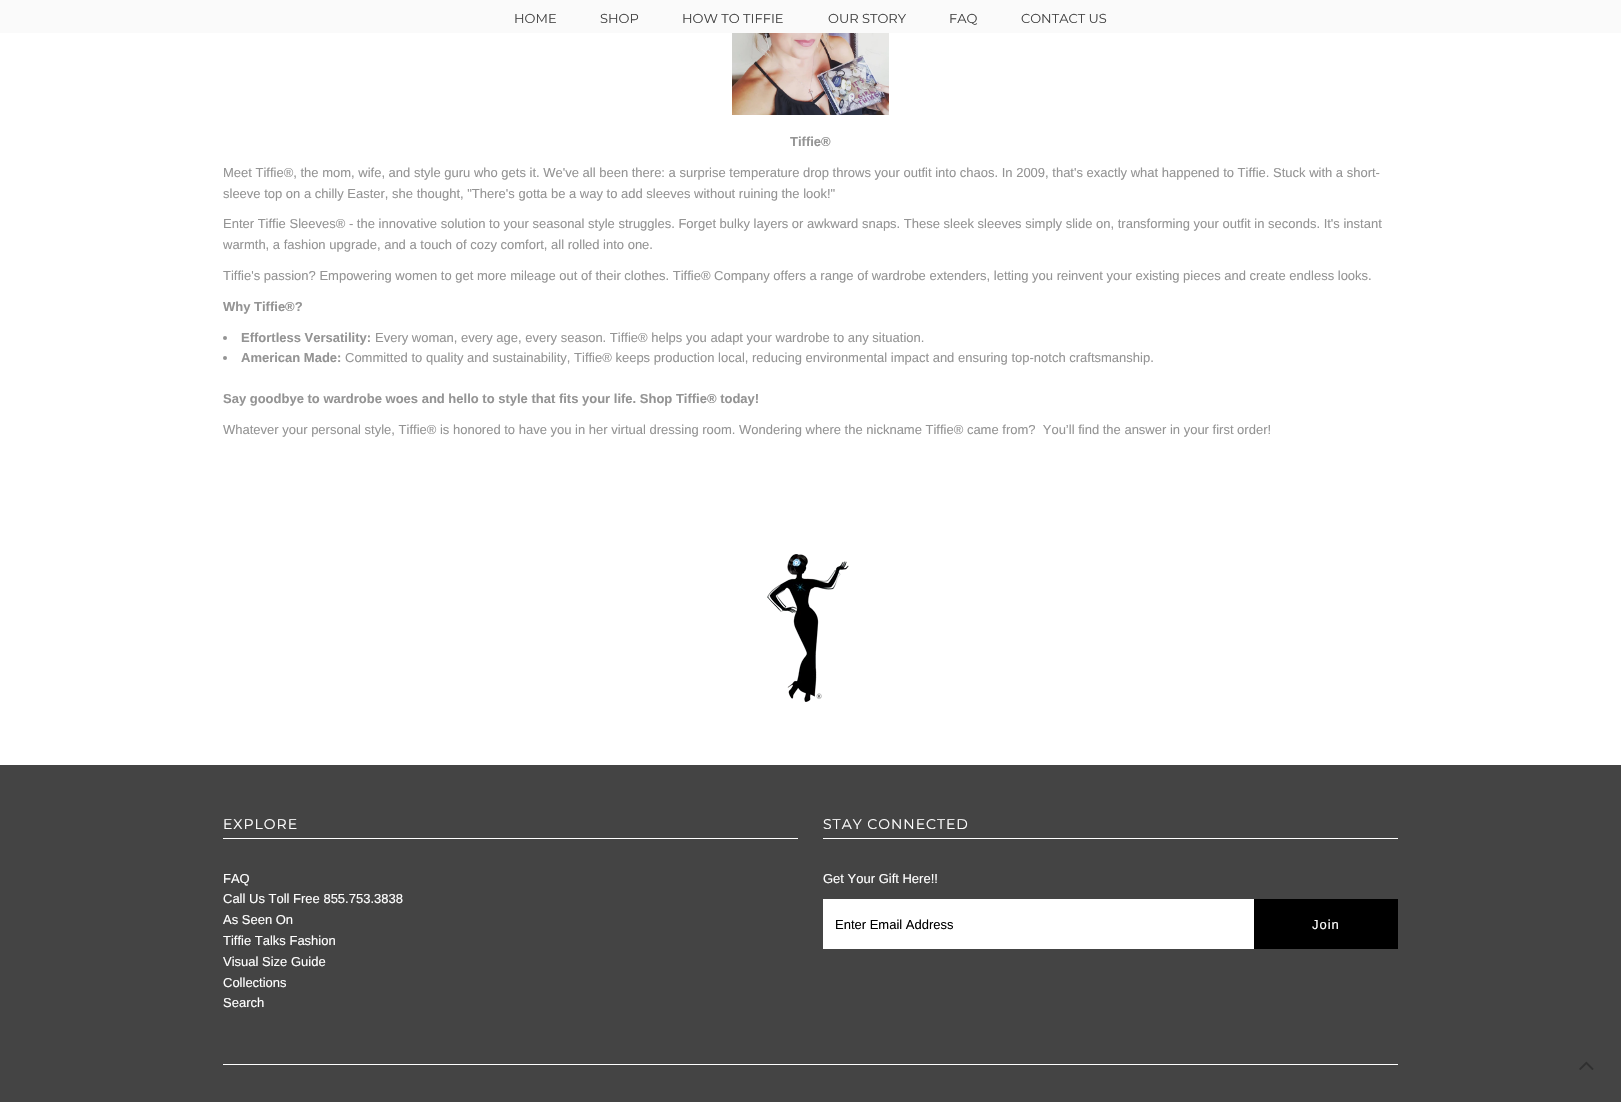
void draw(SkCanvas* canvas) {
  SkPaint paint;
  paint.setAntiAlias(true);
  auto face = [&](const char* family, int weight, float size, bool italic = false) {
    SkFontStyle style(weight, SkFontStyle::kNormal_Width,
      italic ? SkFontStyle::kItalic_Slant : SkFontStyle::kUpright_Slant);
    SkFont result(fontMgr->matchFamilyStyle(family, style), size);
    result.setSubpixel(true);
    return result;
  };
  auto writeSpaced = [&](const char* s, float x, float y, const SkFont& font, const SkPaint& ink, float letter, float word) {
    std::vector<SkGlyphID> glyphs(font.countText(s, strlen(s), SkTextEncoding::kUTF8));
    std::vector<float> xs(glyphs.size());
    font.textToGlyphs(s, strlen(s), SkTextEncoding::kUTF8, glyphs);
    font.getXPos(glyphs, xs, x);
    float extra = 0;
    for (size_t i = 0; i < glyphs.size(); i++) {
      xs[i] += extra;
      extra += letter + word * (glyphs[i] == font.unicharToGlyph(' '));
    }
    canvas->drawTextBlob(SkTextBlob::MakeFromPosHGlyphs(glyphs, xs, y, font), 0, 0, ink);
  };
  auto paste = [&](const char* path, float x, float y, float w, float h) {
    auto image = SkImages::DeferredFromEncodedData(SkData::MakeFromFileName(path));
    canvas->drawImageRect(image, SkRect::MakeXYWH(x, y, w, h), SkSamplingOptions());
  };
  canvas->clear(0xffffffff);
  paint.setColor(0xfffafafa);
  canvas->drawRect(SkRect::MakeXYWH(0, 0, 1621, 33), paint);
  paste("img/1.png", 732, 33, 157, 82);
  paint.setColor(0xff949494);
  canvas->drawCircle(225, 338, 2, paint);
  canvas->drawCircle(225, 358, 2, paint);
  paste("img/2.png", 767, 554, 82, 148);
  {
    const struct { float x, y, w, h; SkColor color; } items[] = {
      {0, 765, 1621, 337, 0xff444444},
      {223, 838, 575, 1, 0xffffffff},
      {823, 838, 575, 1, 0xffffffff},
      {823, 899, 431, 50, 0xffffffff},
      {1254, 899, 144, 50, 0xff000000},
      {223, 1064, 1175, 1, 0xffffffff},
    };
    for (auto [x, y, w, h, color] : items) {
      paint.setColor(color);
      canvas->drawRect(SkRect::MakeXYWH(x, y, w, h), paint);
    }
  }
  paste("img/3.png", 1579, 1061, 15, 9);
  auto f0 = face("Montserrat", 400, 13);
  paint.setColor(0xff444444);
  {
    const struct { const char* s; float x, y; } items[] = {
      {"HOME", 514, 23},
      {"SHOP", 600, 23},
      {"HOW TO TIFFIE", 682, 23},
      {"OUR STORY", 828, 23},
      {"FAQ", 949, 23},
      {"CONTACT US", 1021, 23},
    };
    for (auto [s, x, y] : items) {
      canvas->drawString(s, x, y, f0, paint);
    }
  }
  auto f1 = face("Liberation Sans", 700, 13);
  paint.setColor(0xff949494);
  canvas->drawString("Tiffie®", 790, 146, f1, paint);
  auto f2 = face("Liberation Sans", 400, 13);
  {
    const struct { const char* s; float x, y; } items[] = {
      {"Meet Tiffie®, the mom, wife, and style guru who gets it. We've all been there: a surprise temperature drop throws your outfit into chaos. In 2009, that's exactly what happened to Tiffie. Stuck with a short-", 223, 177},
      {"sleeve top on a chilly Easter, she thought, \"There's gotta be a way to add sleeves without ruining the look!\"", 223, 198},
      {"Enter Tiffie Sleeves® - the innovative solution to your seasonal style struggles. Forget bulky layers or awkward snaps. These sleek sleeves simply slide on, transforming your outfit in seconds. It's instant", 223, 228},
      {"warmth, a fashion upgrade, and a touch of cozy comfort, all rolled into one.", 223, 249},
      {"Tiffie's passion? Empowering women to get more mileage out of their clothes. Tiffie® Company offers a range of wardrobe extenders, letting you reinvent your existing pieces and create endless looks.", 223, 280},
    };
    for (auto [s, x, y] : items) {
      canvas->drawString(s, x, y, f2, paint);
    }
  }
  canvas->drawString("Why Tiffie®?", 223, 311, f1, paint);
  canvas->drawString("Effortless Versatility:", 241, 342, f1, paint);
  canvas->drawString("Every woman, every age, every season. Tiffie® helps you adapt your wardrobe to any situation.", 375, 342, f2, paint);
  canvas->drawString("American Made:", 241, 362, f1, paint);
  canvas->drawString("Committed to quality and sustainability, Tiffie® keeps production local, reducing environmental impact and ensuring top-notch craftsmanship.", 345, 362, f2, paint);
  canvas->drawString("Say goodbye to wardrobe woes and hello to style that fits your life. Shop Tiffie® today!", 223, 403, f1, paint);
  canvas->drawString("Whatever your personal style, Tiffie® is honored to have you in her virtual dressing room. Wondering where the nickname Tiffie® came from?  You’ll find the answer in your first order!", 223, 434, f2, paint);
  auto f3 = face("Montserrat", 400, 14);
  paint.setColor(0xffffffff);
  writeSpaced("EXPLORE", 223, 829, f3, paint, 1, 0);
  {
    const struct { const char* s; float x, y; } items[] = {
      {"FAQ", 223, 883},
      {"Call Us Toll Free 855.753.3838", 223, 903},
      {"As Seen On", 223, 924},
      {"Tiffie Talks Fashion", 223, 945},
      {"Visual Size Guide", 223, 966},
      {"Collections", 223, 987},
      {"Search", 223, 1007},
    };
    for (auto [s, x, y] : items) {
      canvas->drawString(s, x, y, f2, paint);
    }
  }
  writeSpaced("STAY CONNECTED", 823, 829, f3, paint, 1, 0);
  canvas->drawString("Get Your Gift Here!!", 823, 883, f2, paint);
  paint.setColor(0xff000000);
  canvas->drawString("Enter Email Address", 835, 929, f2, paint);
  paint.setColor(0xffffffff);
  writeSpaced("Join", 1312, 929, f2, paint, 1, 0);
}
